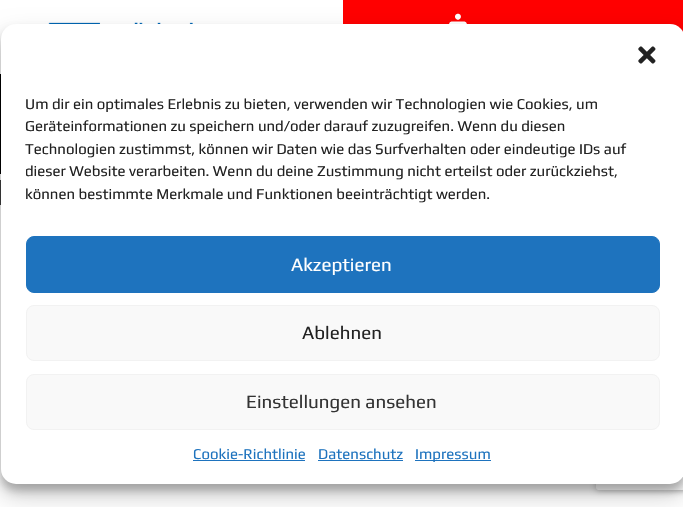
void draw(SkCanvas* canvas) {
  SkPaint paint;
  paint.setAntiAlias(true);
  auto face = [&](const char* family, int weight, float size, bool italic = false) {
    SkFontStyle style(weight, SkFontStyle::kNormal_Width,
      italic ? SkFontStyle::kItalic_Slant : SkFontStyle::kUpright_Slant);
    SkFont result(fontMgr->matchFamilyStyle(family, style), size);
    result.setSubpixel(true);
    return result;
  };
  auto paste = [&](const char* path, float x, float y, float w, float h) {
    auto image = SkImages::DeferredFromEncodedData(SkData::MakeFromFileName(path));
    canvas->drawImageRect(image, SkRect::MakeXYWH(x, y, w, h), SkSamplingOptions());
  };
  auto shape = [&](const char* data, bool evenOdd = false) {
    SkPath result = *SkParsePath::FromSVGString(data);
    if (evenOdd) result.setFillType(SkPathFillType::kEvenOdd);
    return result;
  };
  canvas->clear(0xff3f3f3f);
  paint.setColor(0xffffffff);
  canvas->drawRect(SkRect::MakeXYWH(0, 0, 343, 74), paint);
  paste("img/1.png", 48, 22, 227, 2);
  paint.setColor(0xffff0000);
  canvas->drawRect(SkRect::MakeXYWH(343, 0, 340, 32), paint);
  paste("img/2.png", 449, 13, 18, 11);
  {
    const struct { float x, y, w, h; SkColor color; } items[] = {
      {0, 74, 1, 100, 0xff000000},
      {0, 174, 1, 6, 0xffffffff},
      {0, 205, 683, 302, 0xffffffff},
    };
    for (auto [x, y, w, h, color] : items) {
      paint.setColor(color);
      canvas->drawRect(SkRect::MakeXYWH(x, y, w, h), paint);
    }
  }
  paint.setColor(0x3b000000);
  paint.setMaskFilter(SkMaskFilter::MakeBlur(kNormal_SkBlurStyle, 4));
  canvas->drawRoundRect(SkRect::MakeXYWH(1, 31, 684, 460), 15, 15, paint);
  paint.setMaskFilter(nullptr);
  paint.setColor(0x30000000);
  paint.setMaskFilter(SkMaskFilter::MakeBlur(kNormal_SkBlurStyle, 12.5f));
  canvas->drawRoundRect(SkRect::MakeXYWH(1, 36, 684, 460), 15, 15, paint);
  paint.setMaskFilter(nullptr);
  canvas->save();
  canvas->clipPath(shape("M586 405H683V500H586ZM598.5 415H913.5C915 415 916 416 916 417.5V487.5C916 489 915 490 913.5 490H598.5C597 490 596 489 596 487.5V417.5C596 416 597 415 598.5 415Z", true), true);
  paint.setColor(0xff808080);
  paint.setMaskFilter(SkMaskFilter::MakeBlur(kNormal_SkBlurStyle, 3));
  canvas->drawRoundRect(SkRect::MakeXYWH(596, 415, 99, 75), 2.5f, 2.5f, paint);
  paint.setMaskFilter(nullptr);
  canvas->restore();
  paint.setColor(0xffffffff);
  canvas->drawRoundRect(SkRect::MakeXYWH(1, 24, 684, 460), 15, 15, paint);
  paste("img/3.png", 638, 46, 18, 18);
  paint.setColor(0xff1e73be);
  canvas->drawRoundRect(SkRect::MakeXYWH(26.5f, 236.5f, 633, 56), 7.5f, 7.5f, paint);
  paint.setStroke(true);
  paint.setStrokeWidth(1);
  canvas->drawRoundRect(SkRect::MakeXYWH(26.5f, 236.5f, 633, 56), 7.5f, 7.5f, paint);
  paint.setStroke(false);
  paint.setColor(0xfff9f9f9);
  canvas->drawRoundRect(SkRect::MakeXYWH(26.5f, 305.5f, 633, 55), 7.5f, 7.5f, paint);
  paint.setStroke(true);
  paint.setColor(0xfff2f2f2);
  canvas->drawRoundRect(SkRect::MakeXYWH(26.5f, 305.5f, 633, 55), 7.5f, 7.5f, paint);
  paint.setStroke(false);
  paint.setColor(0xfff9f9f9);
  canvas->drawRoundRect(SkRect::MakeXYWH(26.5f, 374.5f, 633, 55), 7.5f, 7.5f, paint);
  paint.setStroke(true);
  paint.setColor(0xfff2f2f2);
  canvas->drawRoundRect(SkRect::MakeXYWH(26.5f, 374.5f, 633, 55), 7.5f, 7.5f, paint);
  paint.setStroke(false);
  {
    const struct { float x, y, w, h; SkColor color; } items[] = {
      {193, 460, 112, 1, 0xff1e73be},
      {318, 460, 85, 1, 0xff1e73be},
      {415, 460, 76, 1, 0xff1e73be},
    };
    for (auto [x, y, w, h, color] : items) {
      paint.setColor(color);
      canvas->drawRect(SkRect::MakeXYWH(x, y, w, h), paint);
    }
  }
  auto f0 = face("Play", 400, 15);
  paint.setColor(0xff222222);
  {
    const struct { const char* s; float x, y; } items[] = {
      {"Um dir ein optimales Erlebnis zu bieten, verwenden wir Technologien wie Cookies, um", 25, 109},
      {"Geräteinformationen zu speichern und/oder darauf zuzugreifen. Wenn du diesen", 25, 131},
      {"Technologien zustimmst, können wir Daten wie das Surfverhalten oder eindeutige IDs auf", 25, 154},
    };
    for (auto [s, x, y] : items) {
      canvas->drawString(s, x, y, f0, paint);
    }
  }
  canvas->save();
  canvas->clipRect(SkRect::MakeXYWH(26, 93, 634, 118));
  canvas->drawString("dieser Website verarbeiten. Wenn du deine Zustimmung nicht erteilst oder zurückziehst,", 25, 176, f0, paint);
  canvas->restore();
  canvas->drawString("können bestimmte Merkmale und Funktionen beeinträchtigt werden.", 25, 199, f0, paint);
  auto f1 = face("Play", 400, 18.75f);
  paint.setColor(0xffffffff);
  canvas->drawString("Akzeptieren", 291, 271, f1, paint);
  paint.setColor(0xff222222);
  canvas->drawString("Ablehnen", 302, 339, f1, paint);
  paint.setColor(0xff333333);
  canvas->drawString("Einstellungen ansehen", 246, 408, f1, paint);
  paint.setColor(0xff1e73be);
  {
    const struct { const char* s; float x, y; } items[] = {
      {"Cookie-Richtlinie", 193, 459},
      {"Datenschutz", 318, 459},
      {"Impressum", 415, 459},
    };
    for (auto [s, x, y] : items) {
      canvas->drawString(s, x, y, f0, paint);
    }
  }
}
